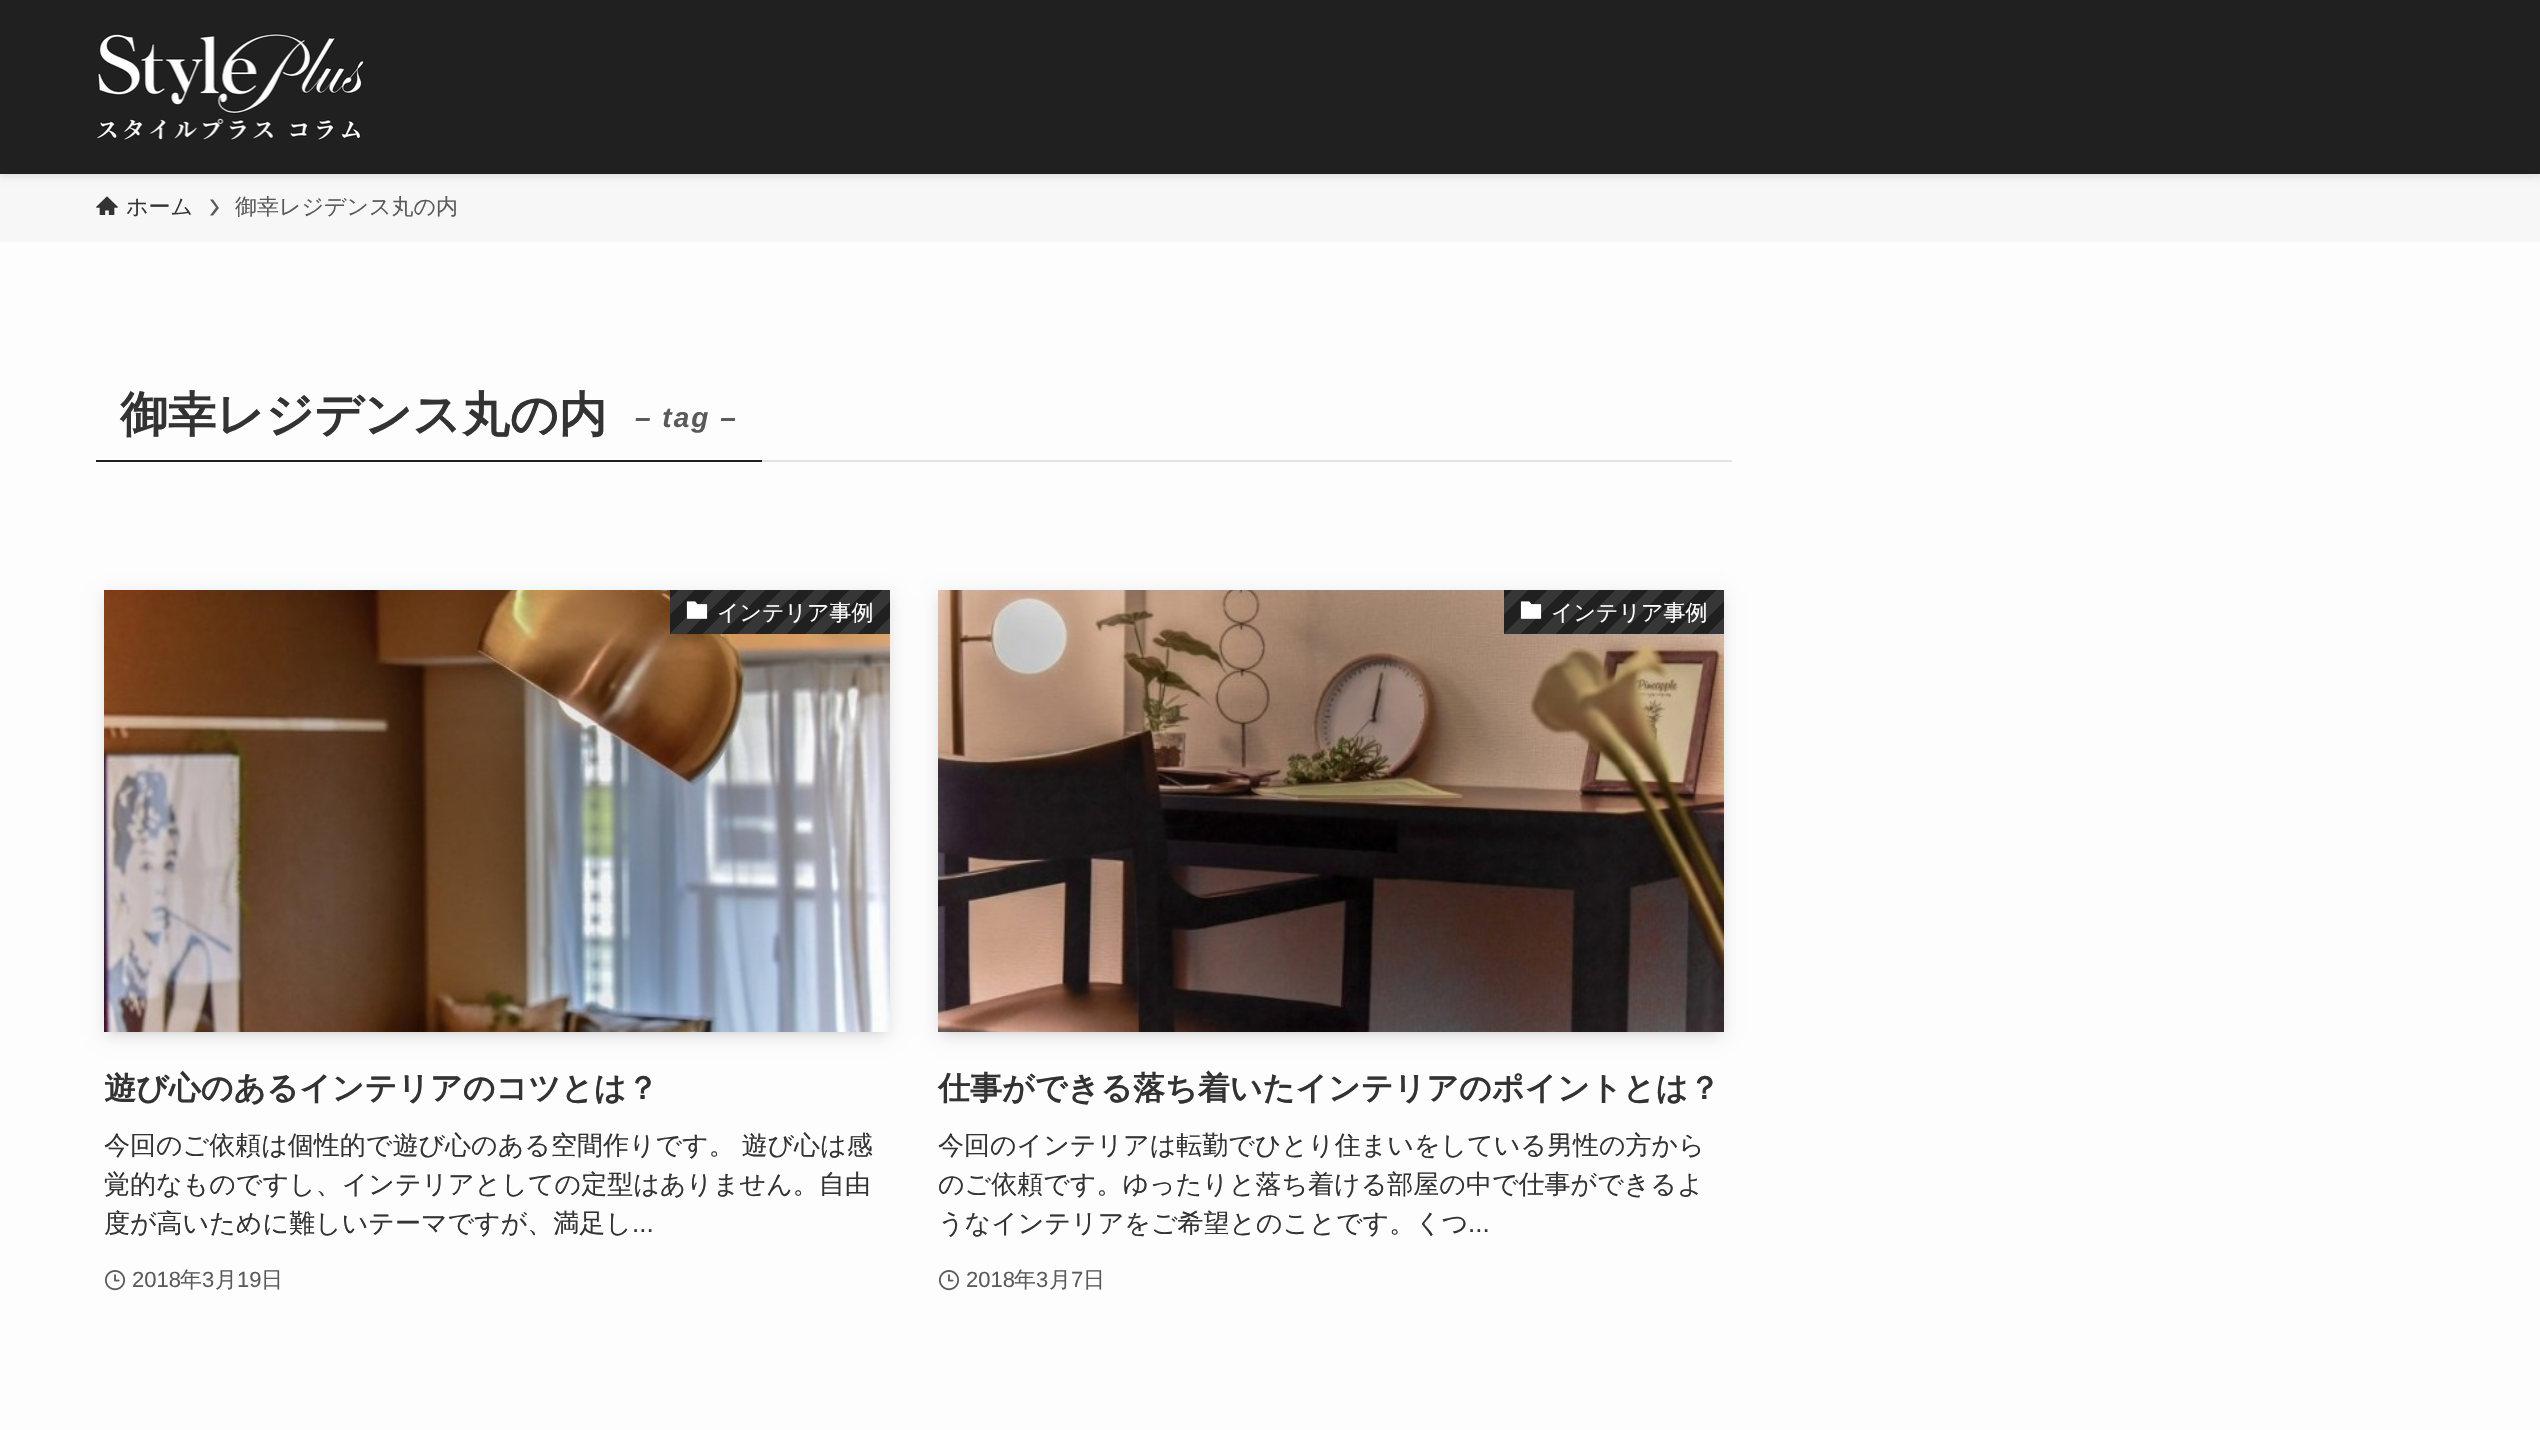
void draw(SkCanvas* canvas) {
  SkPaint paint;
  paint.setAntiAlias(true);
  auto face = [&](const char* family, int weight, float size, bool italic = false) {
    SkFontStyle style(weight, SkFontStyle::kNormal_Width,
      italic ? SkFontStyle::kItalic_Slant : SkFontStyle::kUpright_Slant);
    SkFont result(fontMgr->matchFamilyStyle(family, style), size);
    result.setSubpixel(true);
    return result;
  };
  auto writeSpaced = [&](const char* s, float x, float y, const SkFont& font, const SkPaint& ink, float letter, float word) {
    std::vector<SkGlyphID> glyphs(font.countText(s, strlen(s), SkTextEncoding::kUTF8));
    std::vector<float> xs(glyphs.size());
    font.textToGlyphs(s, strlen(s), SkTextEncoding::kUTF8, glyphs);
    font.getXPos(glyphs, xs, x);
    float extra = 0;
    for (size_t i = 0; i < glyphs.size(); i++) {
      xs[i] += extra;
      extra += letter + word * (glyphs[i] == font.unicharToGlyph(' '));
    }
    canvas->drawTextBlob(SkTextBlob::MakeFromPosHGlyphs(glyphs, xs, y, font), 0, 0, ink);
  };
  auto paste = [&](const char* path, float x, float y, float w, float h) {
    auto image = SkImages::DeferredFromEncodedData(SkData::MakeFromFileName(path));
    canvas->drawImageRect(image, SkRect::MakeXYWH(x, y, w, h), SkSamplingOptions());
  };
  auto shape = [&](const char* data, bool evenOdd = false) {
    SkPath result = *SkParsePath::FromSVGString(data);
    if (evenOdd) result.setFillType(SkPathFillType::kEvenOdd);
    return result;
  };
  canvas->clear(0xfffdfdfd);
  paint.setColor(0xfff7f7f7);
  canvas->drawRect(SkRect::MakeXYWH(0, 174, 2540, 68), paint);
  paint.setColor(0x1f000000);
  paint.setMaskFilter(SkMaskFilter::MakeBlur(kNormal_SkBlurStyle, 4));
  canvas->drawRect(SkRect::MakeXYWH(0, 2, 2540, 174), paint);
  paint.setMaskFilter(nullptr);
  paint.setColor(0xff202020);
  canvas->drawRect(SkRect::MakeXYWH(0, 0, 2540, 174), paint);
  paste("img/1.png", 96, 33, 268, 108);
  paste("img/2.png", 96, 196, 22, 19);
  paint.setColor(0xff5a5a5a);
  canvas->drawPath(shape("M213 199.5H210L216 207.5L210 215.5H213L219 208Z"), paint);
  paint.setColor(0xffe2e2e2);
  canvas->drawRect(SkRect::MakeXYWH(762, 460, 970, 2), paint);
  paint.setColor(0xff202020);
  canvas->drawRect(SkRect::MakeXYWH(96, 460, 666, 2), paint);
  paint.setColor(0x1a000000);
  paint.setMaskFilter(SkMaskFilter::MakeBlur(kNormal_SkBlurStyle, 4));
  canvas->drawRect(SkRect::MakeXYWH(112, 606, 770, 426), paint);
  paint.setMaskFilter(nullptr);
  paint.setMaskFilter(SkMaskFilter::MakeBlur(kNormal_SkBlurStyle, 8));
  canvas->drawRect(SkRect::MakeXYWH(104, 594, 786, 442), paint);
  paint.setMaskFilter(nullptr);
  paste("img/3.png", 104, 590, 786, 442);
  {
    const SkColor colors[] = {0xff363636, 0xff363636, 0xff202020, 0xff202020, 0xff363636, 0xff363636, 0xff202020, 0xff202020, 0xff363636, 0xff363636, 0xff202020, 0xff202020, 0xff363636, 0xff363636, 0xff202020, 0xff202020, 0xff363636, 0xff363636, 0xff202020, 0xff202020, 0xff363636, 0xff363636, 0xff202020, 0xff202020, 0xff363636, 0xff363636, 0xff202020, 0xff202020, 0xff363636, 0xff363636, 0xff202020, 0xff202020};
    const float stops[] = {0, 0.06f, 0.06f, 0.12f, 0.12f, 0.19f, 0.19f, 0.25f, 0.25f, 0.31f, 0.31f, 0.38f, 0.38f, 0.44f, 0.44f, 0.5f, 0.5f, 0.56f, 0.56f, 0.62f, 0.62f, 0.69f, 0.69f, 0.75f, 0.75f, 0.81f, 0.81f, 0.88f, 0.88f, 0.94f, 0.94f, 1};
    const SkPoint ends[] = {{846, 678}, {710, 542}};
    paint.setShader(SkGradientShader::MakeLinear(ends, colors, stops, 32, SkTileMode::kClamp));
    paint.setAlpha(255);
  }
  canvas->drawRect(SkRect::MakeXYWH(670, 590, 220, 44), paint);
  paste("img/4.png", 686, 601, 22, 18);
  paste("img/5.png", 104, 1270, 22, 21);
  paint.setShader(nullptr);
  paint.setColor(0x1a000000);
  paint.setMaskFilter(SkMaskFilter::MakeBlur(kNormal_SkBlurStyle, 4));
  canvas->drawRect(SkRect::MakeXYWH(946, 606, 770, 426), paint);
  paint.setMaskFilter(nullptr);
  paint.setMaskFilter(SkMaskFilter::MakeBlur(kNormal_SkBlurStyle, 8));
  canvas->drawRect(SkRect::MakeXYWH(938, 594, 786, 442), paint);
  paint.setMaskFilter(nullptr);
  paste("img/6.png", 938, 590, 786, 442);
  {
    const SkColor colors[] = {0xff363636, 0xff363636, 0xff202020, 0xff202020, 0xff363636, 0xff363636, 0xff202020, 0xff202020, 0xff363636, 0xff363636, 0xff202020, 0xff202020, 0xff363636, 0xff363636, 0xff202020, 0xff202020, 0xff363636, 0xff363636, 0xff202020, 0xff202020, 0xff363636, 0xff363636, 0xff202020, 0xff202020, 0xff363636, 0xff363636, 0xff202020, 0xff202020, 0xff363636, 0xff363636, 0xff202020, 0xff202020};
    const float stops[] = {0, 0.06f, 0.06f, 0.12f, 0.12f, 0.19f, 0.19f, 0.25f, 0.25f, 0.31f, 0.31f, 0.38f, 0.38f, 0.44f, 0.44f, 0.5f, 0.5f, 0.56f, 0.56f, 0.62f, 0.62f, 0.69f, 0.69f, 0.75f, 0.75f, 0.81f, 0.81f, 0.88f, 0.88f, 0.94f, 0.94f, 1};
    const SkPoint ends[] = {{1680, 678}, {1544, 542}};
    paint.setShader(SkGradientShader::MakeLinear(ends, colors, stops, 32, SkTileMode::kClamp));
    paint.setAlpha(255);
  }
  canvas->drawRect(SkRect::MakeXYWH(1504, 590, 220, 44), paint);
  paste("img/4.png", 1520, 601, 22, 18);
  paste("img/5.png", 938, 1270, 22, 21);
  auto f0 = face("WenQuanYi Zen Hei", 500, 22);
  paint.setShader(nullptr);
  paint.setColor(0xff333333);
  canvas->drawString("ホーム", 126, 214, f0, paint);
  paint.setColor(0xff5a5a5a);
  canvas->drawString("御幸レジデンス丸の内", 235, 214, f0, paint);
  auto f1 = face("WenQuanYi Zen Hei", 700, 48);
  paint.setColor(0xff333333);
  canvas->drawString("御幸レジデンス丸の内", 120, 431, f1, paint);
  auto f2 = face("Liberation Sans", 700, 28, true);
  paint.setColor(0xff5a5a5a);
  writeSpaced("– tag –", 635, 427, f2, paint, 2, 0);
  paint.setColor(0xffffffff);
  canvas->drawString("インテリア事例", 717, 620, f0, paint);
  auto f3 = face("WenQuanYi Zen Hei", 700, 32);
  paint.setColor(0xff333333);
  canvas->drawString("遊び心のあるインテリアのコツとは？", 104, 1099, f3, paint);
  auto f4 = face("WenQuanYi Zen Hei", 500, 26);
  writeSpaced("今回のご依頼は個性的で遊び心のある空間作りです。 遊び心は感", 104, 1154, f4, paint, 0, -1);
  canvas->drawString("覚的なものですし、インテリアとしての定型はありません。自由", 104, 1193, f4, paint);
  canvas->drawString("度が高いために難しいテーマですが、満足し", 104, 1232, f4, paint);
  auto f5 = face("Liberation Sans", 400, 26);
  canvas->drawString("...", 632, 1232, f5, paint);
  auto f6 = face("Liberation Sans", 400, 22);
  paint.setColor(0xff5a5a5a);
  canvas->drawString("2018", 132, 1287, f6, paint);
  canvas->drawString("年", 180, 1287, f0, paint);
  canvas->drawString("3", 202, 1287, f6, paint);
  canvas->drawString("月", 215, 1287, f0, paint);
  canvas->drawString("19", 237, 1287, f6, paint);
  canvas->drawString("日", 261, 1287, f0, paint);
  paint.setColor(0xffffffff);
  canvas->drawString("インテリア事例", 1551, 620, f0, paint);
  paint.setColor(0xff333333);
  canvas->drawString("仕事ができる落ち着いたインテリアのポイントとは？", 938, 1099, f3, paint);
  {
    const struct { const char* s; float x, y; } items[] = {
      {"今回のインテリアは転勤でひとり住まいをしている男性の方から", 938, 1154},
      {"のご依頼です。ゆったりと落ち着ける部屋の中で仕事ができるよ", 938, 1193},
      {"うなインテリアをご希望とのことです。くつ", 938, 1232},
    };
    for (auto [s, x, y] : items) {
      canvas->drawString(s, x, y, f4, paint);
    }
  }
  canvas->drawString("...", 1468, 1232, f5, paint);
  paint.setColor(0xff5a5a5a);
  canvas->drawString("2018", 966, 1287, f6, paint);
  canvas->drawString("年", 1014, 1287, f0, paint);
  canvas->drawString("3", 1036, 1287, f6, paint);
  canvas->drawString("月", 1049, 1287, f0, paint);
  canvas->drawString("7", 1071, 1287, f6, paint);
  canvas->drawString("日", 1083, 1287, f0, paint);
}
